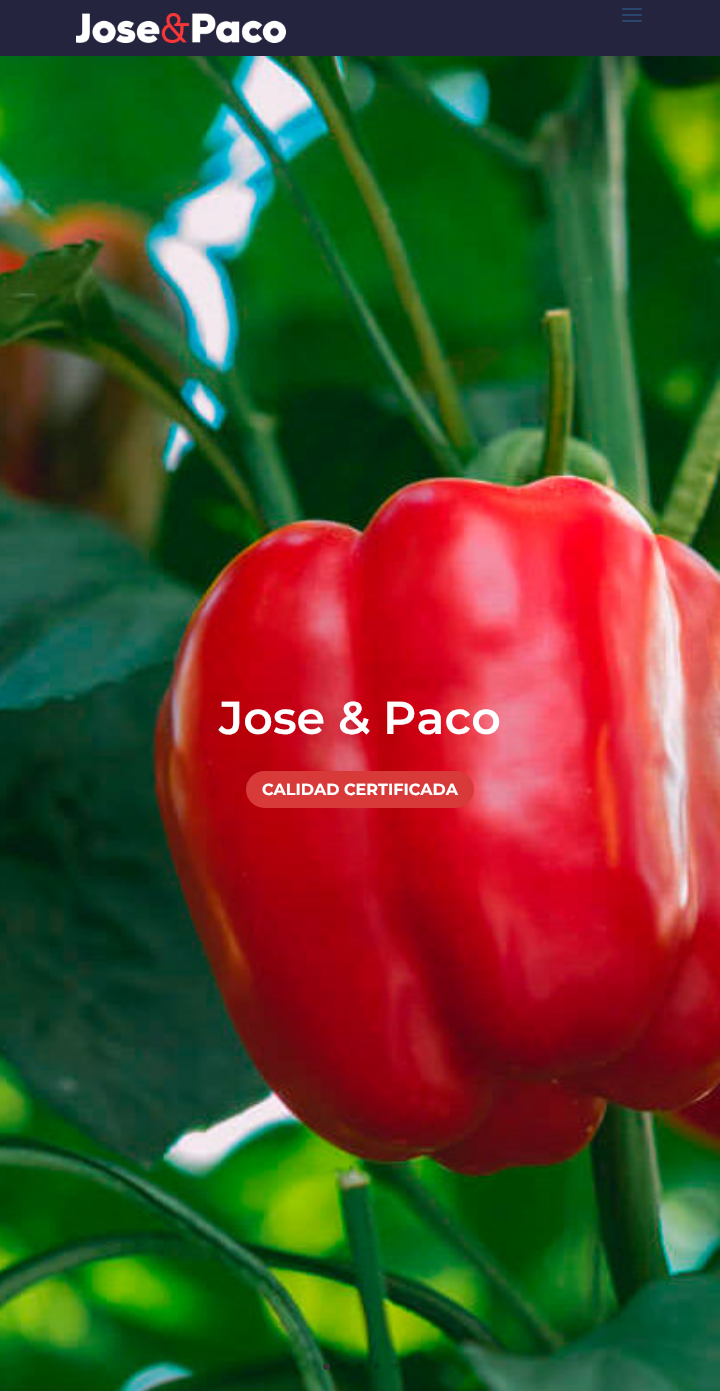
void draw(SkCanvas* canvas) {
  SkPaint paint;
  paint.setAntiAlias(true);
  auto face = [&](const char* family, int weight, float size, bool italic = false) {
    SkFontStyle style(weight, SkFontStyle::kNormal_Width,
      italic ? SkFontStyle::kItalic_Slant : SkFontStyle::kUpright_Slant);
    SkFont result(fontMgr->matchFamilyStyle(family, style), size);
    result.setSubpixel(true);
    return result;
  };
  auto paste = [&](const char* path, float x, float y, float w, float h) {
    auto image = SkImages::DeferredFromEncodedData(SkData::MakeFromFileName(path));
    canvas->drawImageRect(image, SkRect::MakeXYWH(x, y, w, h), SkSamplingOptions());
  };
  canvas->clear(0xffffffff);
  paint.setColor(0xff24243f);
  canvas->drawRect(SkRect::MakeXYWH(0, 0, 720, 56), paint);
  paste("img/1.png", 76, 13, 210, 30);
  paste("img/2.png", 622, 8, 20, 14);
  paste("img/3.png", 0, 56, 720, 1335);
  paint.setColor(0xffd83a3a);
  canvas->drawRoundRect(SkRect::MakeXYWH(246, 771, 228, 37), 18.5f, 18.5f, paint);
  paint.setColor(0xff333333);
  canvas->drawCircle(326.5f, 1366.5f, 3.5f, paint);
  paint.setColor(0x26000000);
  canvas->drawCircle(343.5f, 1366.5f, 3.5f, paint);
  canvas->drawCircle(360.5f, 1366.5f, 3.5f, paint);
  canvas->drawCircle(377.5f, 1366.5f, 3.5f, paint);
  canvas->drawCircle(394.5f, 1366.5f, 3.5f, paint);
  auto f0 = face("Montserrat", 600, 46);
  paint.setColor(0xffffffff);
  canvas->drawString("Jose & Paco", 219, 734, f0, paint);
  auto f1 = face("Montserrat", 700, 16);
  canvas->drawString("CALIDAD CERTIFICADA", 262, 795, f1, paint);
}
